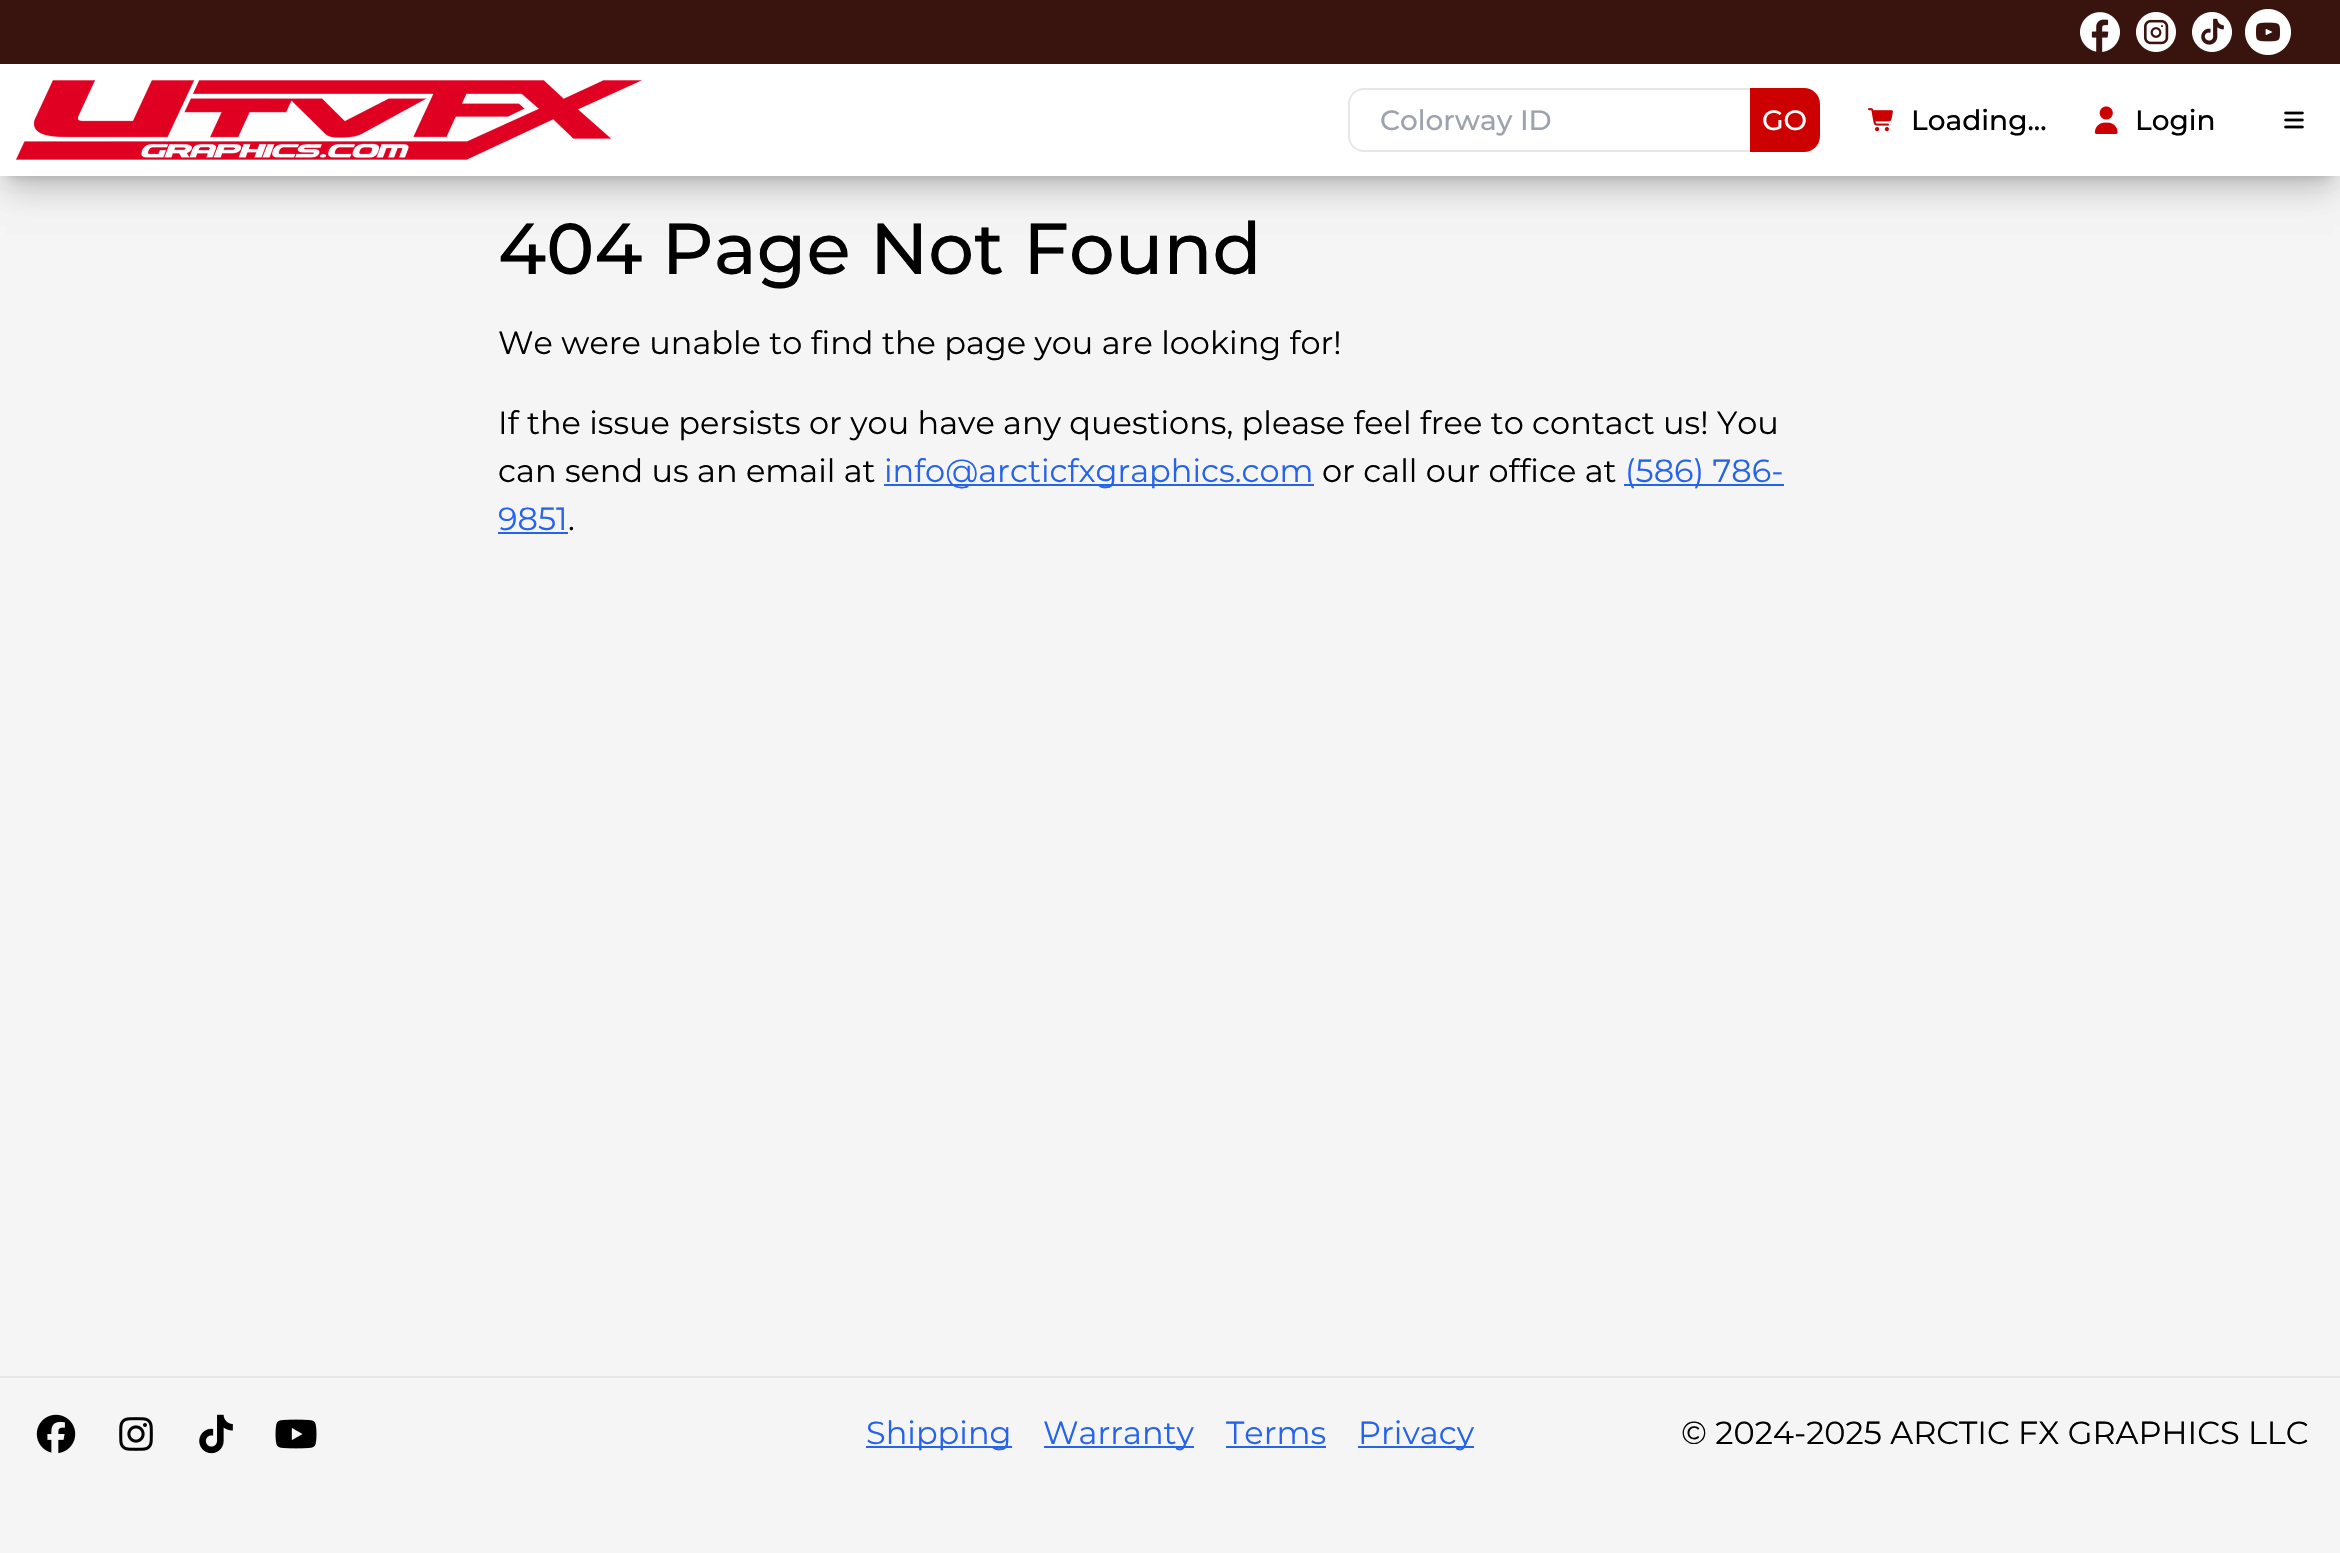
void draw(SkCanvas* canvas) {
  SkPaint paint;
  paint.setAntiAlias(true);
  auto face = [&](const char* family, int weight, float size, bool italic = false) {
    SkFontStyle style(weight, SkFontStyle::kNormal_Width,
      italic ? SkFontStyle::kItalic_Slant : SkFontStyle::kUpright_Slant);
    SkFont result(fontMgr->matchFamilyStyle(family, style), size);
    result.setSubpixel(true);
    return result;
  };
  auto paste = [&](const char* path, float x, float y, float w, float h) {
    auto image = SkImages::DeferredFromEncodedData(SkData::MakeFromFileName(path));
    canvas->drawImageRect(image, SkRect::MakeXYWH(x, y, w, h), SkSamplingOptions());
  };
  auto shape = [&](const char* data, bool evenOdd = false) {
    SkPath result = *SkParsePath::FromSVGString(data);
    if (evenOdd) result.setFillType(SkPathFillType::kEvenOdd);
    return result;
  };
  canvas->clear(0xfff5f5f5);
  paint.setColor(0x1a000000);
  paint.setMaskFilter(SkMaskFilter::MakeBlur(kNormal_SkBlurStyle, 6));
  canvas->drawRect(SkRect::MakeXYWH(8, 16, 2324, 160), paint);
  paint.setMaskFilter(nullptr);
  paint.setMaskFilter(SkMaskFilter::MakeBlur(kNormal_SkBlurStyle, 15));
  canvas->drawRect(SkRect::MakeXYWH(6, 26, 2328, 164), paint);
  paint.setMaskFilter(nullptr);
  paint.setColor(0xff39140f);
  canvas->drawRect(SkRect::MakeXYWH(0, 0, 2340, 64), paint);
  paint.setColor(0x1a000000);
  paint.setMaskFilter(SkMaskFilter::MakeBlur(kNormal_SkBlurStyle, 15));
  canvas->drawRect(SkRect::MakeXYWH(6, 90, 2328, 100), paint);
  paint.setMaskFilter(nullptr);
  paste("img/1.png", 2080, 12, 40, 40);
  paste("img/2.png", 2136, 12, 40, 40);
  paste("img/3.png", 2192, 12, 40, 40);
  paste("img/4.png", 2245, 9, 46, 46);
  paint.setMaskFilter(SkMaskFilter::MakeBlur(kNormal_SkBlurStyle, 6));
  canvas->drawRect(SkRect::MakeXYWH(8, 80, 2324, 96), paint);
  paint.setMaskFilter(nullptr);
  paint.setColor(0xffffffff);
  canvas->drawRect(SkRect::MakeXYWH(0, 64, 2340, 112), paint);
  paste("img/5.png", 16, 80, 626, 80);
  paint.setColor(0xffe5e7eb);
  canvas->drawPath(shape("M1364 88H1750V152H1364C1355 152 1348 145 1348 136V104C1348 95 1355 88 1364 88ZM1364 90H1750V150H1364C1356 150 1350 144 1350 136V104C1350 96 1356 90 1364 90Z", true), paint);
  paint.setColor(0xffcc0000);
  canvas->drawPath(shape("M1750 88H1804C1813 88 1820 95 1820 104V136C1820 145 1813 152 1804 152H1750Z"), paint);
  paste("img/6.png", 1868, 108, 25, 24);
  paste("img/7.png", 2094, 106, 24, 28);
  paste("img/8.png", 2284, 111, 20, 18);
  {
    const struct { float x, y, w, h; SkColor color; } items[] = {
      {884, 484, 430, 2, 0xff2563eb},
      {1624, 484, 160, 2, 0xff2563eb},
      {498, 532, 70, 2, 0xff2563eb},
      {0, 1376, 2340, 2, 0xffe5e7eb},
    };
    for (auto [x, y, w, h, color] : items) {
      paint.setColor(color);
      canvas->drawRect(SkRect::MakeXYWH(x, y, w, h), paint);
    }
  }
  paste("img/9.png", 36, 1414, 40, 39);
  paste("img/10.png", 119, 1417, 34, 34);
  paste("img/11.png", 199, 1414, 34, 40);
  paste("img/12.png", 275, 1419, 42, 30);
  {
    const struct { float x, y, w, h; SkColor color; } items[] = {
      {866, 1446, 146, 2, 0xff2563eb},
      {1044, 1446, 150, 2, 0xff2563eb},
      {1226, 1446, 100, 2, 0xff2563eb},
      {1358, 1446, 116, 2, 0xff2563eb},
    };
    for (auto [x, y, w, h, color] : items) {
      paint.setColor(color);
      canvas->drawRect(SkRect::MakeXYWH(x, y, w, h), paint);
    }
  }
  auto f0 = face("Montserrat", 100, 28);
  paint.setColor(0xff9ca3af);
  canvas->drawString("Colorway ID", 1380, 130, f0, paint);
  paint.setColor(0xffffffff);
  canvas->drawString("GO", 1762, 130, f0, paint);
  paint.setColor(0xff000000);
  canvas->drawString("Loading...", 1911, 130, f0, paint);
  canvas->drawString("Login", 2135, 130, f0, paint);
  auto f1 = face("Montserrat", 100, 72);
  canvas->drawString("404 Page Not Found", 498, 274, f1, paint);
  auto f2 = face("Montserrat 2", 100, 32);
  {
    const struct { const char* s; float x, y; } items[] = {
      {"We were unable to find the page you are looking for!", 498, 354},
      {"If the issue persists or you have any questions, please feel free to contact us! You", 498, 434},
      {"can send us an email at", 498, 482},
    };
    for (auto [s, x, y] : items) {
      canvas->drawString(s, x, y, f2, paint);
    }
  }
  paint.setColor(0xff2563eb);
  canvas->drawString("info@arcticfxgraphics.com", 884, 482, f2, paint);
  paint.setColor(0xff000000);
  canvas->drawString("or call our office at", 1322, 482, f2, paint);
  paint.setColor(0xff2563eb);
  canvas->drawString("(586) 786-", 1625, 482, f2, paint);
  canvas->drawString("9851", 498, 530, f2, paint);
  paint.setColor(0xff000000);
  canvas->drawString(".", 568, 530, f2, paint);
  paint.setColor(0xff2563eb);
  {
    const struct { const char* s; float x, y; } items[] = {
      {"Shipping", 866, 1444},
      {"Warranty", 1043, 1444},
      {"Terms", 1226, 1444},
      {"Privacy", 1358, 1444},
    };
    for (auto [s, x, y] : items) {
      canvas->drawString(s, x, y, f2, paint);
    }
  }
  paint.setColor(0xff000000);
  canvas->drawString("© 2024-2025 ARCTIC FX GRAPHICS LLC", 1681, 1444, f2, paint);
}
